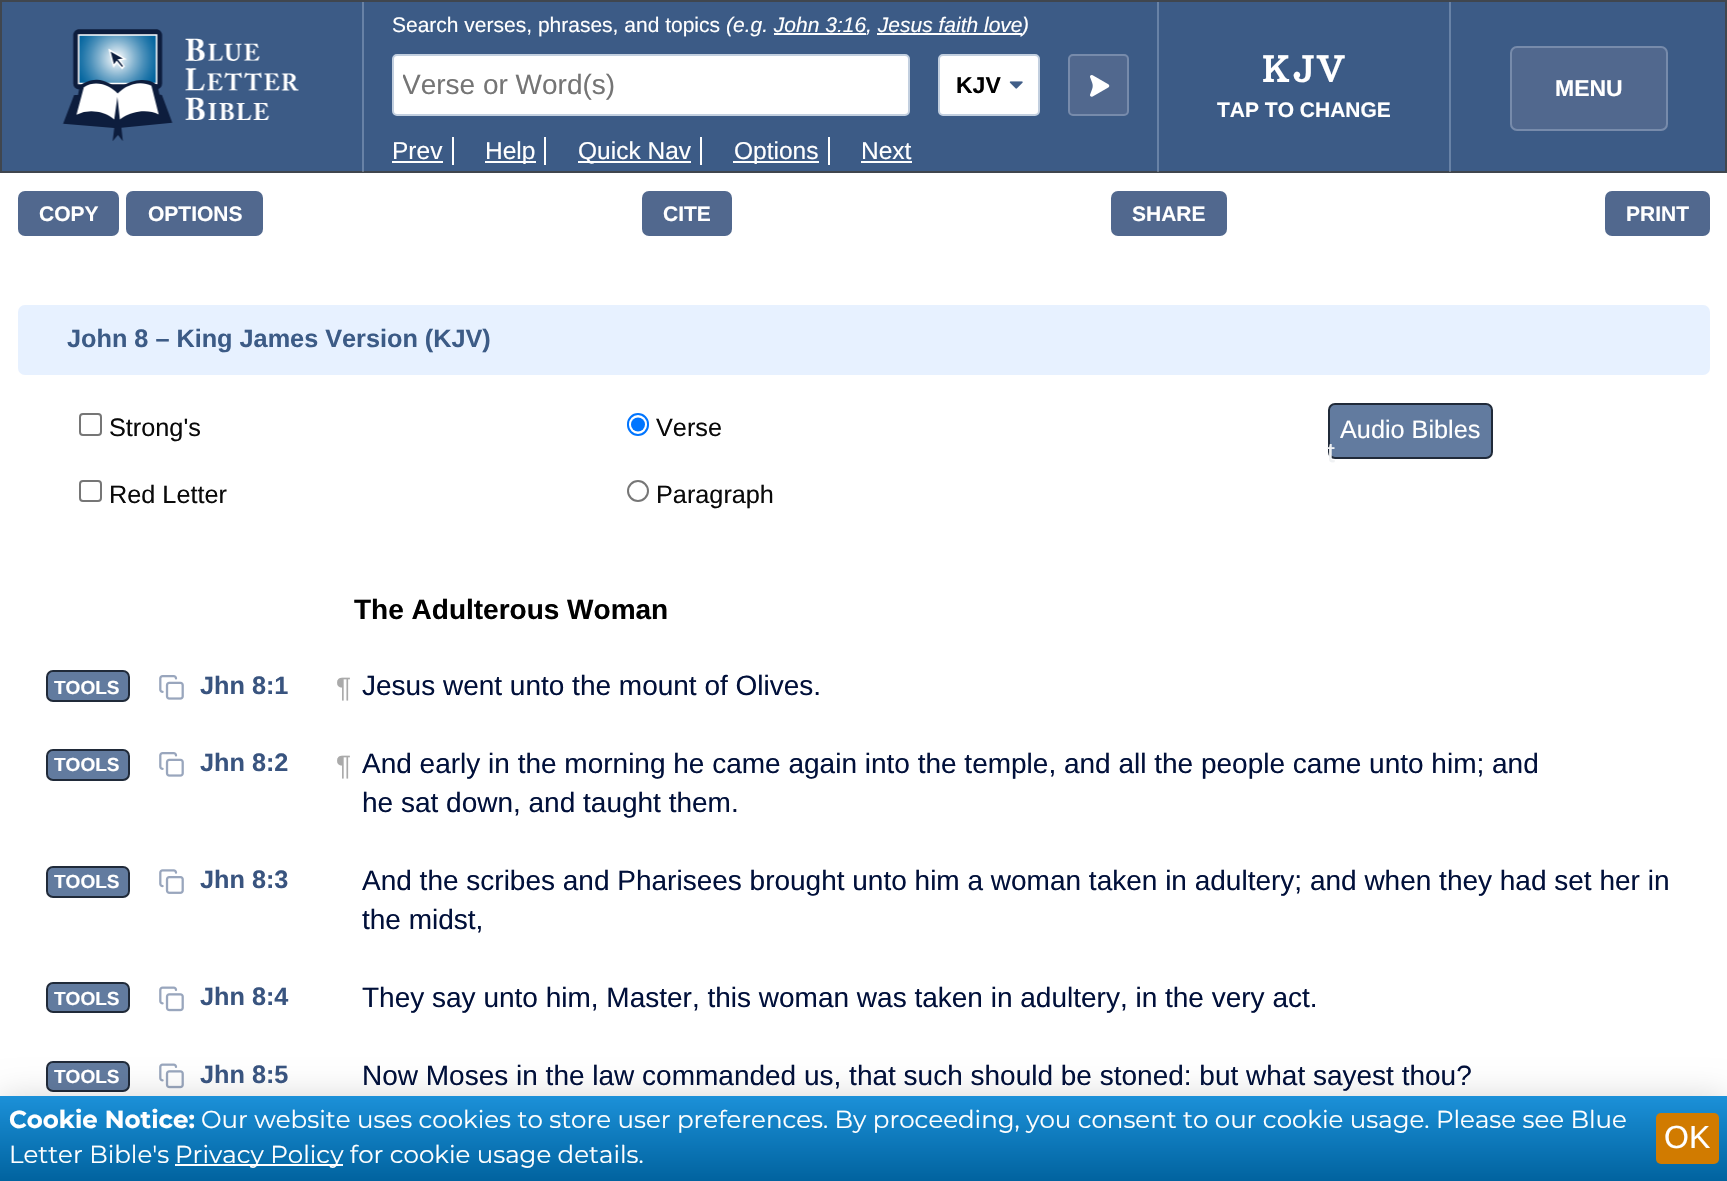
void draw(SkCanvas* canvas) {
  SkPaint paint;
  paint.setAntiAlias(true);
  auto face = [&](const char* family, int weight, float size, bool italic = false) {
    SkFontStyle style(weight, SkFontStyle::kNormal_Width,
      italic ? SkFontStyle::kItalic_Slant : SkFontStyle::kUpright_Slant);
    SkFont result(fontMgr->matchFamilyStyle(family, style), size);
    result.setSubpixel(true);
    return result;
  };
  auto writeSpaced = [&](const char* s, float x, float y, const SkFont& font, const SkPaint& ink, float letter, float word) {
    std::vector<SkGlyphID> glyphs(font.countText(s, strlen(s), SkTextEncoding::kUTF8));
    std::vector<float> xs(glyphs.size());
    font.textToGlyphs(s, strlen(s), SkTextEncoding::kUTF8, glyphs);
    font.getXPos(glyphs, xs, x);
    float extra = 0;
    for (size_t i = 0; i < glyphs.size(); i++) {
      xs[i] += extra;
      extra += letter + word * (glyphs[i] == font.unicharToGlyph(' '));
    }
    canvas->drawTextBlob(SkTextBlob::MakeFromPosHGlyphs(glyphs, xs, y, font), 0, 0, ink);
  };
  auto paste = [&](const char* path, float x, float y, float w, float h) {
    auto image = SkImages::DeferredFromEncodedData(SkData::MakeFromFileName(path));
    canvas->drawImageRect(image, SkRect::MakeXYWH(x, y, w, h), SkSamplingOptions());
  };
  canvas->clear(0xffffffff);
  paint.setColor(0xff3c5b86);
  canvas->drawRect(SkRect::MakeXYWH(1, 1, 1725, 171), paint);
  paint.setStroke(true);
  paint.setStrokeWidth(2);
  paint.setColor(0xff40464e);
  canvas->drawRect(SkRect::MakeXYWH(1, 1, 1725, 171), paint);
  paste("img/1.png", 62, 29, 237, 112);
  paint.setStroke(false);
  paint.setColor(0x4dcddaed);
  canvas->drawRect(SkRect::MakeXYWH(362, 2, 2, 170), paint);
  paint.setColor(0xffffffff);
  canvas->drawRoundRect(SkRect::MakeXYWH(393, 55, 516, 60), 4, 4, paint);
  paint.setStroke(true);
  paint.setColor(0xffc2cfdf);
  canvas->drawRoundRect(SkRect::MakeXYWH(393, 55, 516, 60), 4, 4, paint);
  paint.setStroke(false);
  paint.setColor(0xffffffff);
  canvas->drawRoundRect(SkRect::MakeXYWH(939, 55, 100, 60), 4, 4, paint);
  paint.setStroke(true);
  paint.setColor(0xffc2cfdf);
  canvas->drawRoundRect(SkRect::MakeXYWH(939, 55, 100, 60), 4, 4, paint);
  paste("img/2.png", 1009, 81, 14, 8);
  paint.setStroke(false);
  paint.setColor(0xff51688e);
  canvas->drawRoundRect(SkRect::MakeXYWH(1068, 54, 61, 62), 5, 5, paint);
  paint.setStroke(true);
  paint.setColor(0x4dcddaed);
  canvas->drawRoundRect(SkRect::MakeXYWH(1069, 55, 59, 60), 4, 4, paint);
  paste("img/3.png", 1090, 75, 20, 22);
  paint.setStroke(false);
  {
    const struct { float x, y, w, h; SkColor color; } items[] = {
      {452, 137, 2, 28, 0xfffefefe},
      {392, 161, 51, 2, 0xfffefefe},
      {544, 137, 2, 28, 0xfffefefe},
      {485, 161, 51, 2, 0xfffefefe},
      {700, 137, 2, 28, 0xfffefefe},
      {578, 161, 113, 2, 0xfffefefe},
      {828, 137, 2, 28, 0xfffefefe},
      {733, 161, 86, 2, 0xfffefefe},
      {861, 161, 51, 2, 0xfffefefe},
      {1157, 2, 2, 170, 0x4dcddaed},
      {1449, 2, 2, 170, 0x4dcddaed},
    };
    for (auto [x, y, w, h, color] : items) {
      paint.setColor(color);
      canvas->drawRect(SkRect::MakeXYWH(x, y, w, h), paint);
    }
  }
  paint.setColor(0xff51688e);
  canvas->drawRoundRect(SkRect::MakeXYWH(1510, 46, 158, 85), 7, 7, paint);
  paint.setStroke(true);
  paint.setColor(0x4dcddaed);
  canvas->drawRoundRect(SkRect::MakeXYWH(1511, 47, 156, 83), 6, 6, paint);
  paint.setStroke(false);
  paint.setColor(0xff51688e);
  canvas->drawRoundRect(SkRect::MakeXYWH(18, 191, 101, 45), 7, 7, paint);
  canvas->drawRoundRect(SkRect::MakeXYWH(126, 191, 137, 45), 7, 7, paint);
  canvas->drawRoundRect(SkRect::MakeXYWH(642, 191, 90, 45), 7, 7, paint);
  canvas->drawRoundRect(SkRect::MakeXYWH(1111, 191, 116, 45), 7, 7, paint);
  canvas->drawRoundRect(SkRect::MakeXYWH(1605, 191, 105, 45), 7, 7, paint);
  paint.setColor(0xffe7f1ff);
  canvas->drawRoundRect(SkRect::MakeXYWH(18, 305, 1692, 70), 7, 7, paint);
  paint.setStroke(true);
  paint.setColor(0xff767676);
  canvas->drawRoundRect(SkRect::MakeXYWH(80, 414, 21, 21), 3, 3, paint);
  canvas->drawRoundRect(SkRect::MakeXYWH(80, 481, 21, 20), 3, 3, paint);
  paint.setColor(0xff0075ff);
  canvas->drawRoundRect(SkRect::MakeXYWH(628, 414, 20, 21), 10, 10, paint);
  paint.setStroke(false);
  canvas->drawCircle(638, 424.5f, 7, paint);
  paint.setStroke(true);
  paint.setColor(0xff767676);
  canvas->drawCircle(638, 491, 10, paint);
  paint.setStroke(false);
  paint.setColor(0xff627b9f);
  canvas->drawRoundRect(SkRect::MakeXYWH(1329, 404, 163, 54), 6, 6, paint);
  paint.setStroke(true);
  paint.setColor(0xff202a39);
  canvas->drawRoundRect(SkRect::MakeXYWH(1329, 404, 163, 54), 6, 6, paint);
  paint.setStroke(false);
  paint.setColor(0xff627b9f);
  canvas->drawRoundRect(SkRect::MakeXYWH(47, 671, 82, 30), 6, 6, paint);
  paint.setStroke(true);
  paint.setColor(0xff202a39);
  canvas->drawRoundRect(SkRect::MakeXYWH(47, 671, 82, 30), 6, 6, paint);
  paste("img/4.png", 159, 675, 25, 25);
  paint.setStroke(false);
  paint.setColor(0xff627b9f);
  canvas->drawRoundRect(SkRect::MakeXYWH(47, 750, 82, 30), 6, 6, paint);
  paint.setStroke(true);
  paint.setColor(0xff202a39);
  canvas->drawRoundRect(SkRect::MakeXYWH(47, 750, 82, 30), 6, 6, paint);
  paste("img/4.png", 159, 752, 25, 25);
  paint.setStroke(false);
  paint.setColor(0xff627b9f);
  canvas->drawRoundRect(SkRect::MakeXYWH(47, 867, 82, 30), 6, 6, paint);
  paint.setStroke(true);
  paint.setColor(0xff202a39);
  canvas->drawRoundRect(SkRect::MakeXYWH(47, 867, 82, 30), 6, 6, paint);
  paste("img/5.png", 159, 869, 25, 25);
  paint.setStroke(false);
  paint.setColor(0xff627b9f);
  canvas->drawRoundRect(SkRect::MakeXYWH(47, 983, 82, 29), 6, 6, paint);
  paint.setStroke(true);
  paint.setColor(0xff202a39);
  canvas->drawRoundRect(SkRect::MakeXYWH(47, 983, 82, 29), 6, 6, paint);
  paste("img/6.png", 159, 986, 25, 26);
  paint.setStroke(false);
  paint.setColor(0xff627b9f);
  canvas->drawRoundRect(SkRect::MakeXYWH(47, 1062, 82, 29), 6, 6, paint);
  paint.setStroke(true);
  paint.setColor(0xff202a39);
  canvas->drawRoundRect(SkRect::MakeXYWH(47, 1062, 82, 29), 6, 6, paint);
  paste("img/6.png", 159, 1063, 25, 26);
  paint.setStroke(false);
  paint.setColor(0x2e000000);
  paint.setMaskFilter(SkMaskFilter::MakeBlur(kNormal_SkBlurStyle, 17.5f));
  canvas->drawRect(SkRect::MakeXYWH(0, 1099, 1727, 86), paint);
  paint.setMaskFilter(nullptr);
  {
    const SkColor colors[] = {0xff1c91d9, 0xff01639f};
    const float stops[] = {0, 1};
    const SkPoint ends[] = {{864, 1095}, {864, 1181}};
    paint.setShader(SkGradientShader::MakeLinear(ends, colors, stops, 2, SkTileMode::kClamp));
    paint.setAlpha(255);
  }
  canvas->drawRect(SkRect::MakeXYWH(0, 1096, 1727, 85), paint);
  paint.setShader(nullptr);
  paint.setColor(0xffffffff);
  canvas->drawRect(SkRect::MakeXYWH(175, 1164, 168, 2), paint);
  paint.setColor(0xffd17b00);
  canvas->drawRoundRect(SkRect::MakeXYWH(1656, 1113, 63, 51), 5, 5, paint);
  auto f0 = face("Liberation Sans", 400, 21);
  paint.setColor(0xffffffff);
  canvas->drawString("Search verses, phrases, and topics", 392, 32, f0, paint);
  auto f1 = face("Liberation Sans", 400, 21, true);
  canvas->drawString("(e.g. John 3:16, Jesus faith love", 726, 32, f1, paint);
  paint.setColor(0xfffefefe);
  canvas->drawRect(SkRect::MakeXYWH(774, 33, 92, 2), paint);
  canvas->drawRect(SkRect::MakeXYWH(877, 33, 145, 2), paint);
  paint.setColor(0xffffffff);
  canvas->drawString(")", 1022, 32, f1, paint);
  canvas->save();
  canvas->clipRect(SkRect::MakeXYWH(403, 70, 497, 32));
  auto f2 = face("Liberation Sans", 400, 28);
  paint.setColor(0xff757575);
  canvas->drawString("Verse or Word(s)", 402, 94, f2, paint);
  canvas->restore();
  auto f3 = face("Liberation Sans", 700, 23);
  paint.setColor(0xff000000);
  canvas->drawString("KJV", 956, 93, f3, paint);
  auto f4 = face("Liberation Sans", 400, 24.5f);
  paint.setColor(0xffffffff);
  {
    const struct { const char* s; float x, y; } items[] = {
      {"Prev", 392, 159},
      {"Help", 485, 159},
      {"Quick Nav", 578, 159},
      {"Options", 734, 159},
      {"Next", 861, 159},
    };
    for (auto [s, x, y] : items) {
      canvas->drawString(s, x, y, f4, paint);
    }
  }
  auto f5 = face("Arbutus Slab", 700, 35);
  writeSpaced("KJV", 1262, 82, f5, paint, 3.5f, 0);
  auto f6 = face("Liberation Sans", 700, 21);
  canvas->drawString("TAP TO CHANGE", 1217, 117, f6, paint);
  canvas->drawString("MENU", 1555, 96, f3, paint);
  paint.setColor(0xffeff1f3);
  canvas->drawString("t", 1327, 462, f2, paint);
  paint.setColor(0xffffffff);
  {
    const struct { const char* s; float x, y; } items[] = {
      {"COPY", 39, 221},
      {"OPTIONS", 148, 221},
      {"CITE", 663, 221},
      {"SHARE", 1132, 221},
      {"PRINT", 1626, 221},
    };
    for (auto [s, x, y] : items) {
      canvas->drawString(s, x, y, f6, paint);
    }
  }
  auto f7 = face("Liberation Sans", 700, 25.25f);
  paint.setColor(0xff3c5b86);
  canvas->drawString("John 8 – King James Version (KJV)", 67, 347, f7, paint);
  auto f8 = face("Liberation Sans", 400, 25.25f);
  paint.setColor(0xff0a0a0a);
  {
    const struct { const char* s; float x, y; } items[] = {
      {"Strong's", 109, 436},
      {"Red Letter", 109, 503},
      {"Verse", 656, 436},
      {"Paragraph", 656, 503},
    };
    for (auto [s, x, y] : items) {
      canvas->drawString(s, x, y, f8, paint);
    }
  }
  paint.setColor(0xffffffff);
  canvas->drawString("Audio Bibles", 1340, 438, f8, paint);
  auto f9 = face("Liberation Sans", 700, 28);
  paint.setColor(0xff000000);
  canvas->drawString("The Adulterous Woman", 354, 619, f9, paint);
  auto f10 = face("Liberation Sans", 700, 19);
  paint.setColor(0xffffffff);
  canvas->drawString("TOOLS", 54, 694, f10, paint);
  paint.setColor(0xff39547f);
  canvas->drawString("Jhn 8:1", 200, 694, f7, paint);
  paint.setColor(0xffaaaaaa);
  canvas->drawString("¶", 336, 697, f2, paint);
  paint.setColor(0xff01103a);
  canvas->drawString("Jesus went unto the mount of Olives.", 362, 695, f2, paint);
  paint.setColor(0xffffffff);
  canvas->drawString("TOOLS", 54, 771, f10, paint);
  paint.setColor(0xff39547f);
  canvas->drawString("Jhn 8:2", 200, 771, f7, paint);
  paint.setColor(0xffaaaaaa);
  canvas->drawString("¶", 336, 775, f2, paint);
  paint.setColor(0xff01103a);
  canvas->drawString("And early in the morning he came again into the temple, and all the people came unto him; and", 362, 773, f2, paint);
  canvas->drawString("he sat down, and taught them.", 362, 812, f2, paint);
  paint.setColor(0xffffffff);
  canvas->drawString("TOOLS", 54, 888, f10, paint);
  paint.setColor(0xff39547f);
  canvas->drawString("Jhn 8:3", 200, 888, f7, paint);
  paint.setColor(0xff01103a);
  canvas->drawString("And the scribes and Pharisees brought unto him a woman taken in adultery; and when they had set her in", 362, 890, f2, paint);
  canvas->drawString("the midst,", 362, 929, f2, paint);
  paint.setColor(0xffffffff);
  canvas->drawString("TOOLS", 54, 1005, f10, paint);
  paint.setColor(0xff39547f);
  canvas->drawString("Jhn 8:4", 200, 1005, f7, paint);
  paint.setColor(0xff01103a);
  canvas->drawString("They say unto him, Master, this woman was taken in adultery, in the very act.", 362, 1007, f2, paint);
  paint.setColor(0xffffffff);
  canvas->drawString("TOOLS", 54, 1083, f10, paint);
  paint.setColor(0xff39547f);
  canvas->drawString("Jhn 8:5", 200, 1083, f7, paint);
  paint.setColor(0xff01103a);
  canvas->drawString("Now Moses in the law commanded us, that such should be stoned: but what sayest thou?", 362, 1085, f2, paint);
  auto f11 = face("Montserrat", 700, 24.5f);
  paint.setColor(0xffffffff);
  canvas->drawString("Cookie Notice:", 9, 1128, f11, paint);
  auto f12 = face("Montserrat", 400, 24.5f);
  {
    const struct { const char* s; float x, y; } items[] = {
      {"Our website uses cookies to store user preferences. By proceeding, you consent to our cookie usage. Please see Blue", 201, 1128},
      {"Letter Bible's", 9, 1163},
      {"Privacy Policy for cookie usage details.", 175, 1163},
    };
    for (auto [s, x, y] : items) {
      canvas->drawString(s, x, y, f12, paint);
    }
  }
  auto f13 = face("Liberation Sans", 400, 32);
  canvas->drawString("OK", 1664, 1148, f13, paint);
}
